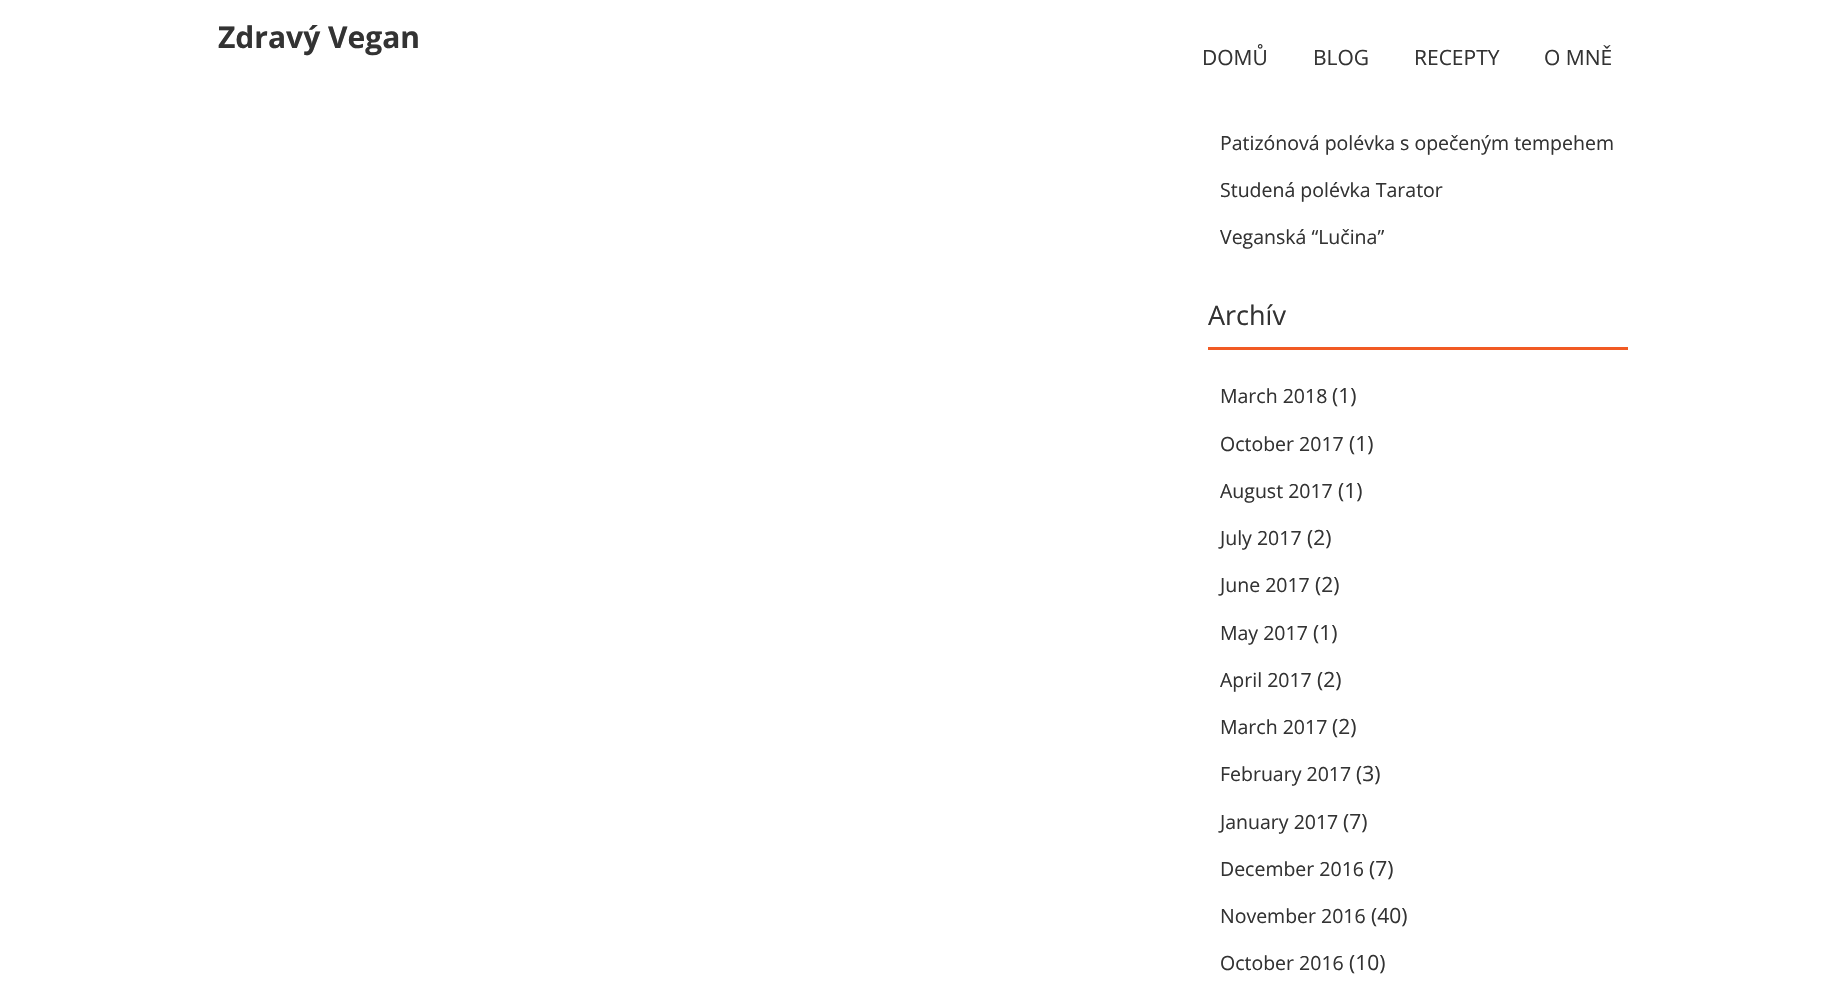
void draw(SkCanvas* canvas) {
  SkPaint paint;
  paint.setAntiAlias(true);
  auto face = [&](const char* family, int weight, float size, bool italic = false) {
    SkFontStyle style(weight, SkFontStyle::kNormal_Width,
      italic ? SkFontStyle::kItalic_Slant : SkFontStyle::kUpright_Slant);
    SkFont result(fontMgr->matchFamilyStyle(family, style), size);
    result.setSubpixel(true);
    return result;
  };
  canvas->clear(0xffffffff);
  paint.setColor(0xfff15a23);
  canvas->drawRect(SkRect::MakeXYWH(1208, 347, 420, 3), paint);
  auto f0 = face("Open Sans", 700, 30);
  paint.setColor(0xff333333);
  canvas->drawString("Zdravý Vegan", 218, 48, f0, paint);
  auto f1 = face("Open Sans", 400, 21);
  {
    const struct { const char* s; float x, y; } items[] = {
      {"DOMŮ", 1202, 65},
      {"BLOG", 1313, 65},
      {"RECEPTY", 1414, 65},
      {"O MNĚ", 1544, 65},
    };
    for (auto [s, x, y] : items) {
      canvas->drawString(s, x, y, f1, paint);
    }
  }
  auto f2 = face("Open Sans", 400, 19.5f);
  {
    const struct { const char* s; float x, y; } items[] = {
      {"Patizónová polévka s opečeným tempehem", 1220, 150},
      {"Studená polévka Tarator", 1220, 197},
      {"Veganská “Lučina”", 1220, 244},
    };
    for (auto [s, x, y] : items) {
      canvas->drawString(s, x, y, f2, paint);
    }
  }
  auto f3 = face("Open Sans", 400, 27);
  canvas->drawString("Archív", 1208, 325, f3, paint);
  canvas->drawString("March 2018", 1220, 403, f2, paint);
  canvas->drawString("(1)", 1332, 403, f1, paint);
  canvas->drawString("October 2017", 1220, 451, f2, paint);
  canvas->drawString("(1)", 1349, 451, f1, paint);
  canvas->drawString("August 2017", 1220, 498, f2, paint);
  canvas->drawString("(1)", 1338, 498, f1, paint);
  canvas->drawString("July 2017", 1220, 545, f2, paint);
  canvas->drawString("(2)", 1307, 545, f1, paint);
  canvas->drawString("June 2017", 1220, 592, f2, paint);
  canvas->drawString("(2)", 1315, 592, f1, paint);
  canvas->drawString("May 2017", 1220, 640, f2, paint);
  canvas->drawString("(1)", 1313, 640, f1, paint);
  canvas->drawString("April 2017", 1220, 687, f2, paint);
  canvas->drawString("(2)", 1317, 687, f1, paint);
  canvas->drawString("March 2017", 1220, 734, f2, paint);
  canvas->drawString("(2)", 1332, 734, f1, paint);
  canvas->drawString("February 2017", 1220, 781, f2, paint);
  canvas->drawString("(3)", 1356, 781, f1, paint);
  canvas->drawString("January 2017", 1220, 829, f2, paint);
  canvas->drawString("(7)", 1343, 829, f1, paint);
  canvas->drawString("December 2016", 1220, 876, f2, paint);
  canvas->drawString("(7)", 1369, 876, f1, paint);
  canvas->drawString("November 2016", 1220, 923, f2, paint);
  canvas->drawString("(40)", 1371, 923, f1, paint);
  canvas->drawString("October 2016", 1220, 970, f2, paint);
  canvas->drawString("(10)", 1349, 970, f1, paint);
}
